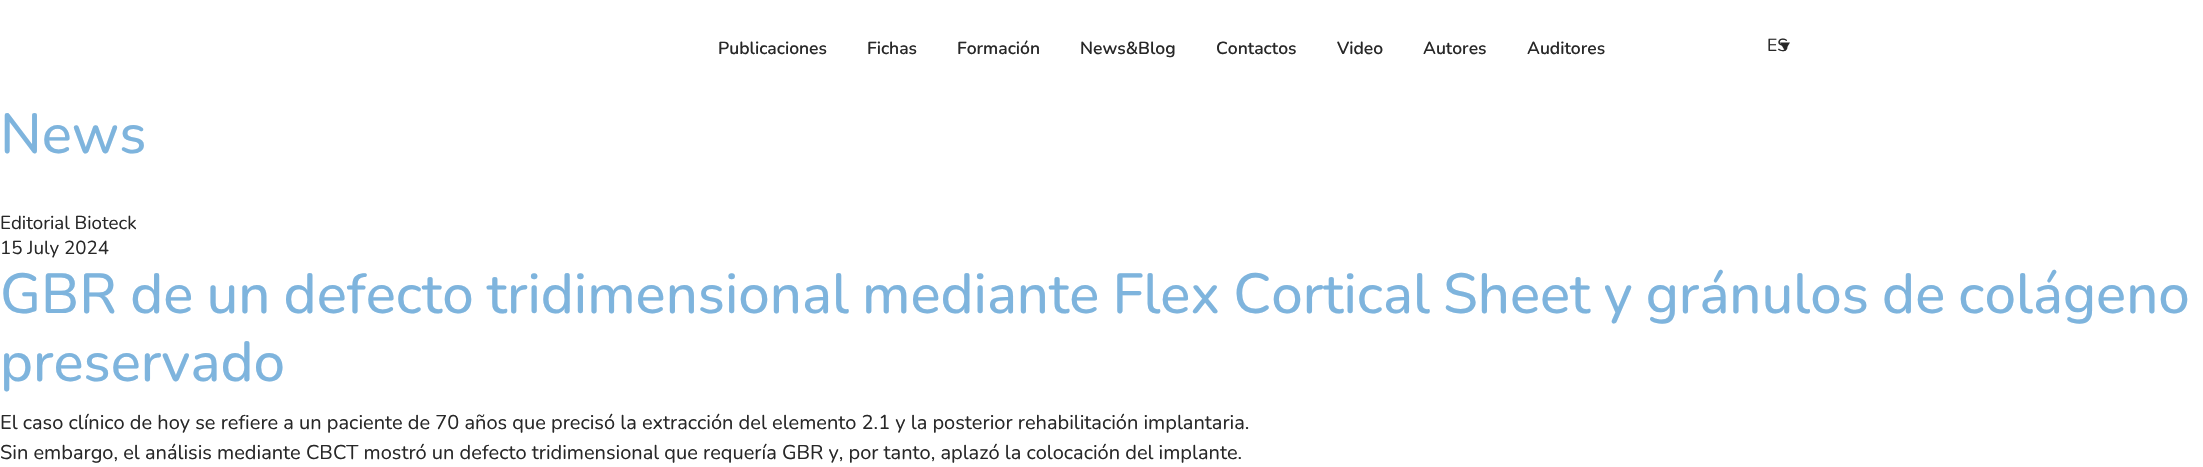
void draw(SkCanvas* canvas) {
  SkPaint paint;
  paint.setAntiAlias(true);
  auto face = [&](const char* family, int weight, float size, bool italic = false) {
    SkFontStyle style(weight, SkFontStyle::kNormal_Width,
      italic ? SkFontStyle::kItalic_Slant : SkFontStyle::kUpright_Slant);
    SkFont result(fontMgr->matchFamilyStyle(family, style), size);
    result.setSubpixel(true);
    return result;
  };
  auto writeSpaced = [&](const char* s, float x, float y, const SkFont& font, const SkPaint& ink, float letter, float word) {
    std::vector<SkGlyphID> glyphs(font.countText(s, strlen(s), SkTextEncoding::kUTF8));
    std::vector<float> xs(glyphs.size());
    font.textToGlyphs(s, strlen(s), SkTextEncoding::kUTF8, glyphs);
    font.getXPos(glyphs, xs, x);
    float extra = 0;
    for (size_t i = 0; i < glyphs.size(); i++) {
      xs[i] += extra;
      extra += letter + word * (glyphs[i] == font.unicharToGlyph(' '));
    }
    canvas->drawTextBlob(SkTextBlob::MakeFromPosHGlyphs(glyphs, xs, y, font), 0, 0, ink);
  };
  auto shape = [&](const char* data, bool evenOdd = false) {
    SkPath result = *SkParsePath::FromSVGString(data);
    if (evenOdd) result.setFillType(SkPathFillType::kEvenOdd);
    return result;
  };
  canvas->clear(0xffffffff);
  paint.setColor(0xff282828);
  canvas->drawPath(shape("M1780 42.5H1790L1785 51Z"), paint);
  auto f0 = face("Nunito", 600, 17.5f);
  {
    const struct { const char* s; float x, y; } items[] = {
      {"Publicaciones", 718, 54},
      {"Fichas", 867, 54},
      {"Formación", 957, 54},
      {"News&Blog", 1080, 54},
      {"Contactos", 1216, 54},
      {"Video", 1337, 54},
      {"Autores", 1423, 54},
      {"Auditores", 1527, 54},
    };
    for (auto [s, x, y] : items) {
      canvas->drawString(s, x, y, f0, paint);
    }
  }
  auto f1 = face("Nunito", 400, 17.5f);
  canvas->drawString("ES", 1767, 51, f1, paint);
  auto f2 = face("Nunito", 500, 56.25f);
  paint.setColor(0xff7eb4dd);
  canvas->drawString("News", 0, 153, f2, paint);
  auto f3 = face("Nunito", 400, 18.75f);
  paint.setColor(0xff282828);
  canvas->drawString("Editorial Bioteck", 0, 229, f3, paint);
  canvas->drawString("15 July 2024", 0, 254, f3, paint);
  paint.setColor(0xff7eb4dd);
  writeSpaced("GBR de un defecto tridimensional mediante Flex Cortical Sheet y gránulos de colágeno", 0, 313, f2, paint, 0, -1.5f);
  canvas->drawString("preservado", 0, 381, f2, paint);
  auto f4 = face("Nunito", 400, 20);
  paint.setColor(0xff282828);
  canvas->drawString("El caso clínico de hoy se refiere a un paciente de 70 años que precisó la extracción del elemento 2.1 y la posterior rehabilitación implantaria.", 0, 429, f4, paint);
  canvas->drawString("Sin embargo, el análisis mediante CBCT mostró un defecto tridimensional que requería GBR y, por tanto, aplazó la colocación del implante.", 0, 459, f4, paint);
}
